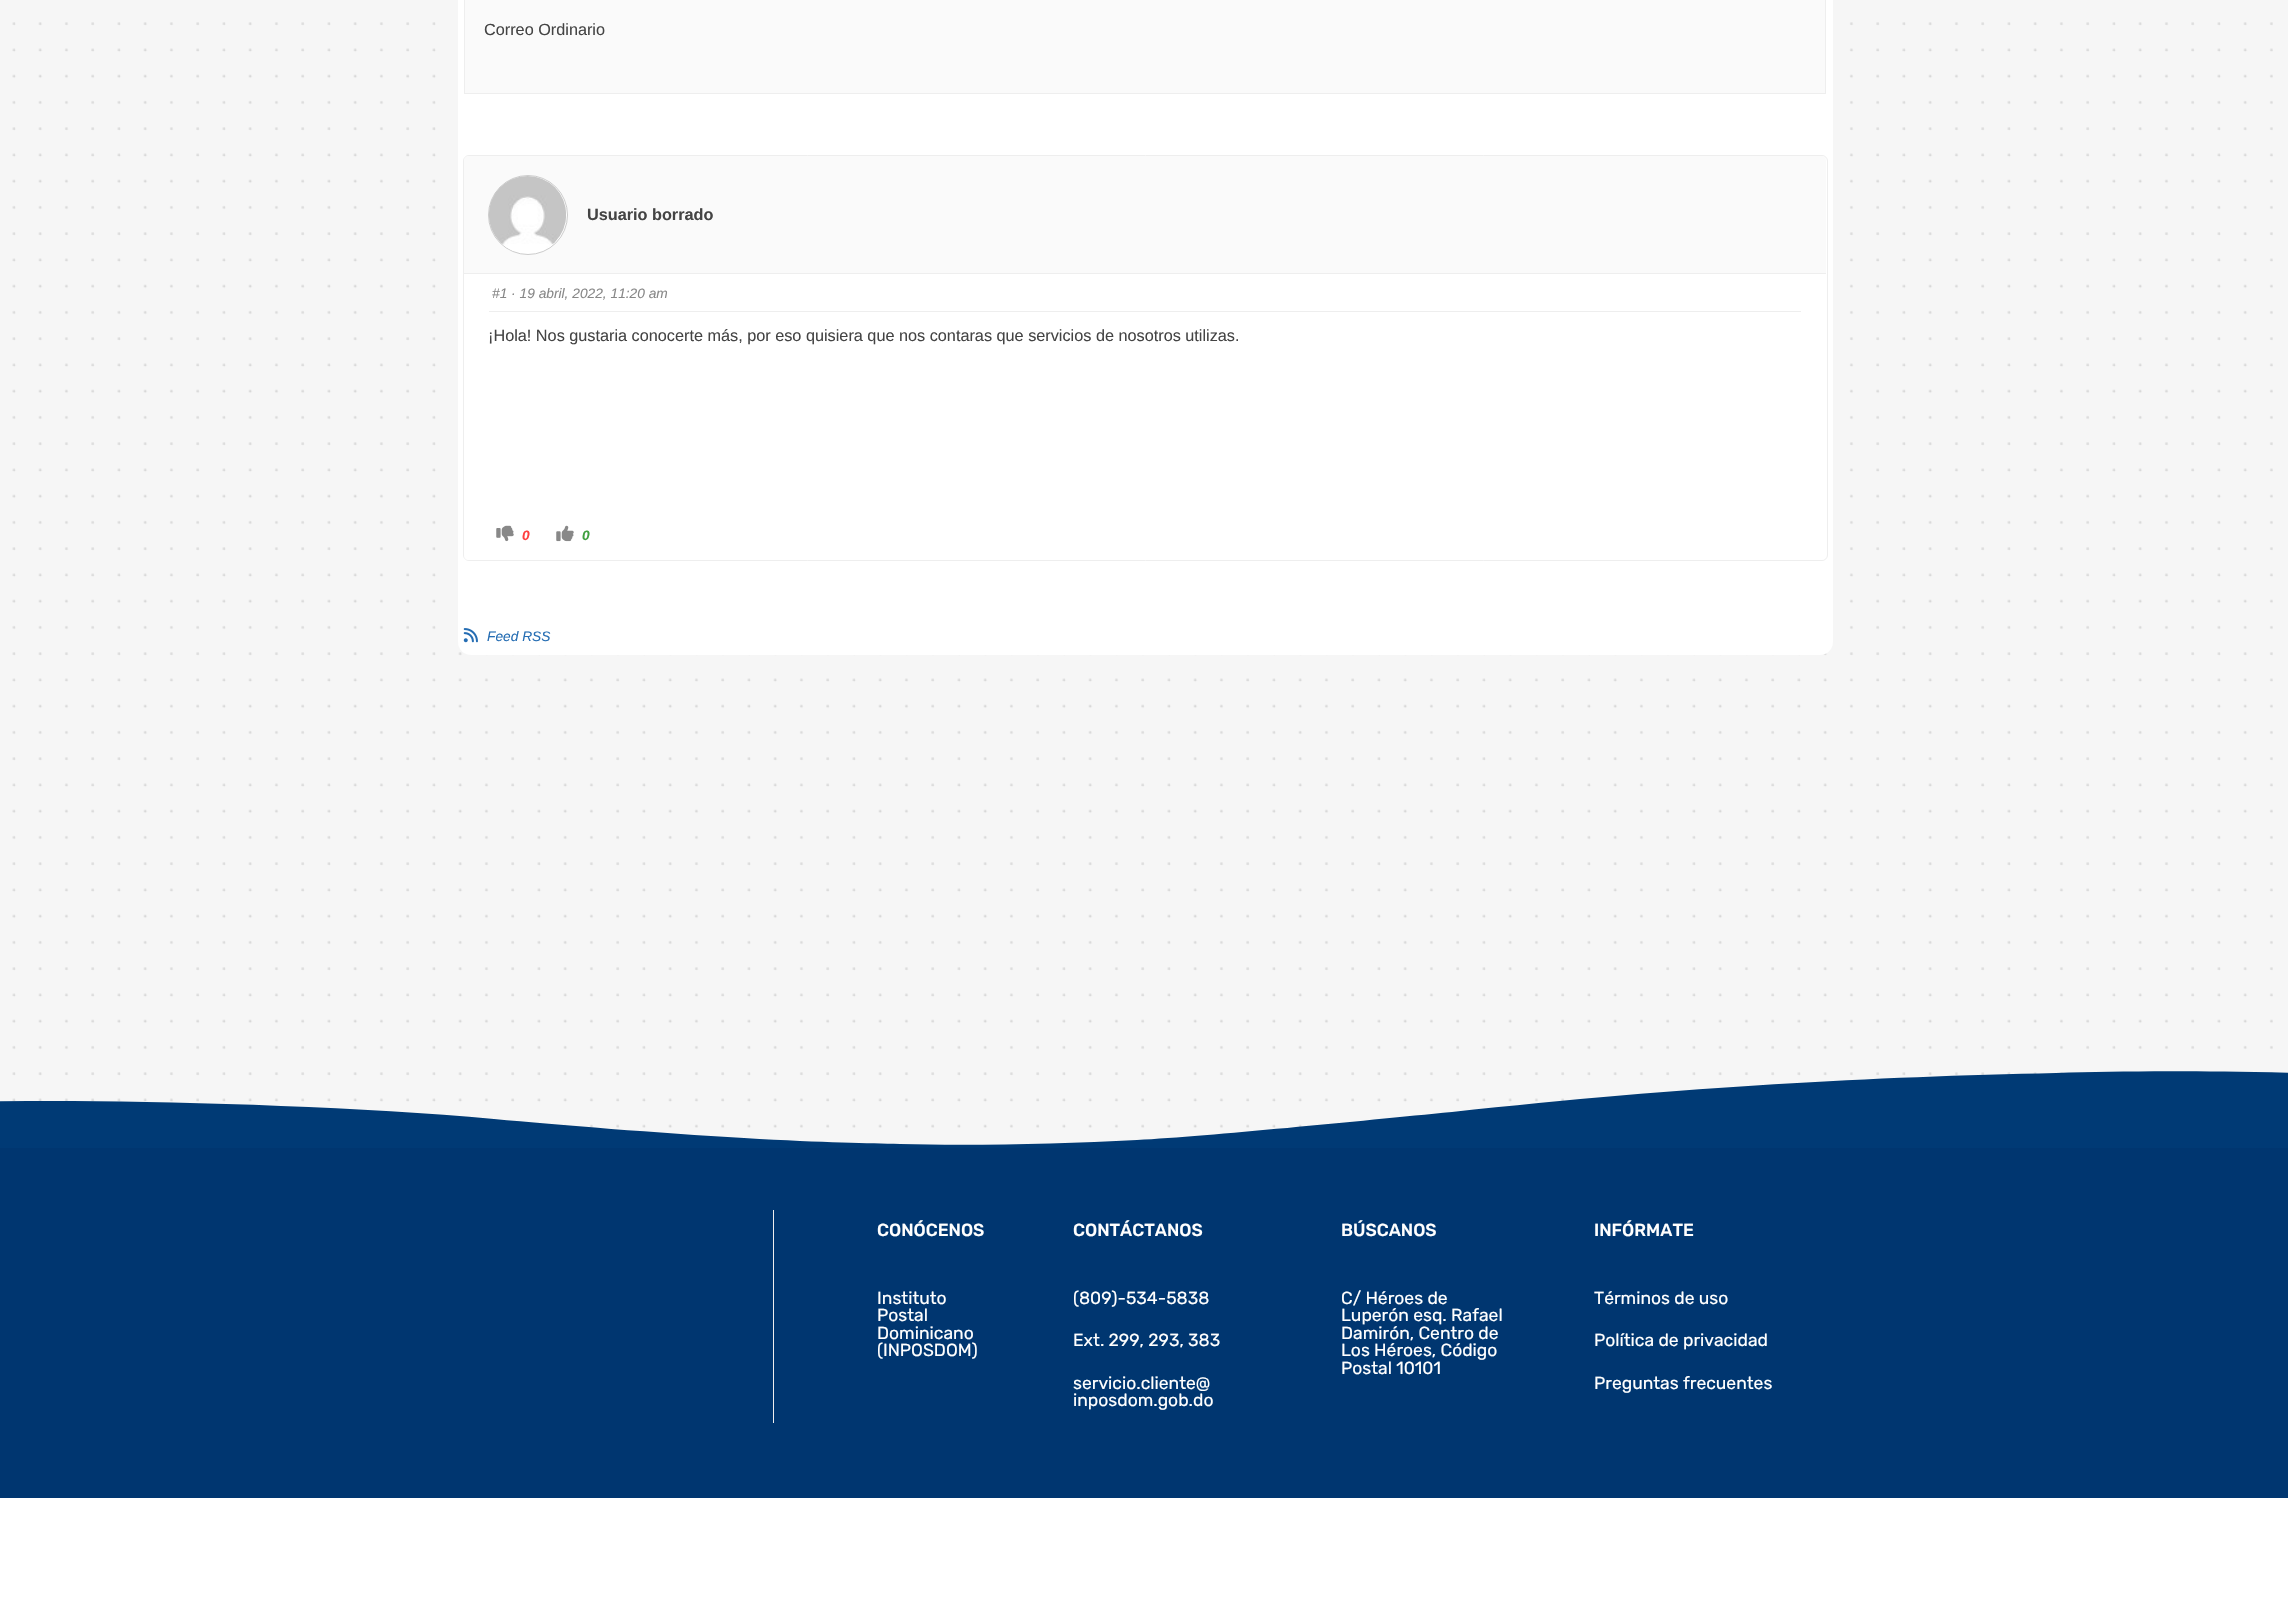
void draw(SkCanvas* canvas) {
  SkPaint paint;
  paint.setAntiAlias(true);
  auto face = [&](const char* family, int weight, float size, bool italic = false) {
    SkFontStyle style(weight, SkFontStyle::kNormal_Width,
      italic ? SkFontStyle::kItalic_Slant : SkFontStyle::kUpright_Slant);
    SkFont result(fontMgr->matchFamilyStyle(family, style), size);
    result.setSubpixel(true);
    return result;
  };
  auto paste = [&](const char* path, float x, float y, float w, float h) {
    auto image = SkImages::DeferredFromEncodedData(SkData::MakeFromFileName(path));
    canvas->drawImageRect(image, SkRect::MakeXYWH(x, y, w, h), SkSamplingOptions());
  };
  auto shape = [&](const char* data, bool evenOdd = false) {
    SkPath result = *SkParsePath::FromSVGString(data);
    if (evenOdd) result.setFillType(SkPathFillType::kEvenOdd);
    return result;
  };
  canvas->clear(0xffffffff);
  paint.setColor(0xfff6f6f6);
  canvas->drawRect(SkRect::MakeXYWH(0, 0, 2288, 1145), paint);
  paste("img/1.png", 12, 22, 2261, 1106);
  paint.setColor(0xffffffff);
  canvas->drawRoundRect(SkRect::MakeXYWH(458, -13, 1375, 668), 13, 13, paint);
  paint.setColor(0xfffafafa);
  canvas->drawRect(SkRect::MakeXYWH(464.5f, -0.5f, 1361, 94), paint);
  paint.setStroke(true);
  paint.setStrokeWidth(1);
  paint.setColor(0xffeeeeee);
  canvas->drawRect(SkRect::MakeXYWH(464.5f, -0.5f, 1361, 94), paint);
  canvas->drawRoundRect(SkRect::MakeXYWH(463.5f, 155.5f, 1364, 405), 5.5f, 5.5f, paint);
  paint.setStroke(false);
  paint.setColor(0xfffafafa);
  canvas->drawPath(shape("M469 156H1821C1824 156 1826 158 1826 161V274H464V161C464 158 466 156 469 156Z"), paint);
  paint.setColor(0xffeeeeee);
  canvas->drawRect(SkRect::MakeXYWH(464, 273, 1362, 1), paint);
  paint.setColor(0xffffffff);
  canvas->drawCircle(528, 215, 39.5f, paint);
  paint.setStroke(true);
  paint.setColor(0xffcccccc);
  canvas->drawCircle(528, 215, 39.5f, paint);
  paste("img/2.png", 489, 176, 77, 75);
  paint.setStroke(false);
  paint.setColor(0xffffffff);
  canvas->drawPath(shape("M464 274H1826V555C1826 558 1824 560 1821 560H469C466 560 464 558 464 555Z"), paint);
  paint.setColor(0xffeeeeee);
  canvas->drawRect(SkRect::MakeXYWH(489, 311, 1312, 1), paint);
  paste("img/3.png", 496, 525, 18, 17);
  paste("img/4.png", 556, 525, 18, 17);
  paste("img/5.png", 463, 628, 15, 15);
  paint.setColor(0xff003a75);
  canvas->drawPath(shape("M900 1144C971 1146 1062 1144 1137 1140C1211 1136 1359 1121 1452 1112C1690 1086 1872 1077 2056 1073C2130 1071 2209 1070 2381 1075C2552 1079 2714 1095 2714 1095V1149H-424V1125C-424 1125-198 1100 73 1101C196 1102 364 1107 494 1119C560 1125 657 1133 744 1138C829 1143 868 1143 900 1144Z"), paint);
  paint.setColor(0xff003670);
  canvas->drawRect(SkRect::MakeXYWH(0, 1148, 2288, 350), paint);
  paint.setColor(0xffeeeeee);
  canvas->drawRect(SkRect::MakeXYWH(773, 1210, 1, 213), paint);
  auto f0 = face("Liberation Sans", 400, 16.25f);
  paint.setColor(0xff444444);
  canvas->drawString("Correo Ordinario", 484, 35, f0, paint);
  auto f1 = face("Liberation Sans", 700, 16.25f);
  canvas->drawString("Usuario borrado", 587, 220, f1, paint);
  auto f2 = face("Liberation Sans", 400, 13.75f, true);
  paint.setColor(0xff888888);
  canvas->drawString("#1 · 19 abril, 2022, 11:20 am", 492, 298, f2, paint);
  paint.setColor(0xff444444);
  canvas->drawString("¡Hola! Nos gustaria conocerte más, por eso quisiera que nos contaras que servicios de nosotros utilizas.", 488, 341, f0, paint);
  auto f3 = face("Liberation Sans", 700, 13.75f, true);
  paint.setColor(0xffff4040);
  canvas->drawString("0", 522, 540, f3, paint);
  paint.setColor(0xff40a040);
  canvas->drawString("0", 582, 540, f3, paint);
  paint.setColor(0xff256db3);
  canvas->drawString("Feed RSS", 487, 641, f2, paint);
  auto f4 = face("Rubik", 500, 17.5f);
  paint.setColor(0xffffffff);
  canvas->drawString("CONÓCENOS", 877, 1236, f4, paint);
  auto f5 = face("Rubik", 400, 17.5f);
  {
    const struct { const char* s; float x, y; } items[] = {
      {"Instituto", 877, 1304},
      {"Postal", 877, 1321},
      {"Dominicano", 877, 1339},
      {"(INPOSDOM)", 877, 1356},
    };
    for (auto [s, x, y] : items) {
      canvas->drawString(s, x, y, f5, paint);
    }
  }
  canvas->drawString("CONTÁCTANOS", 1073, 1236, f4, paint);
  {
    const struct { const char* s; float x, y; } items[] = {
      {"(809)-534-5838", 1073, 1304},
      {"Ext. 299, 293, 383", 1073, 1346},
      {"servicio.cliente@", 1073, 1389},
      {"inposdom.gob.do", 1073, 1406},
    };
    for (auto [s, x, y] : items) {
      canvas->drawString(s, x, y, f5, paint);
    }
  }
  canvas->drawString("BÚSCANOS", 1341, 1236, f4, paint);
  {
    const struct { const char* s; float x, y; } items[] = {
      {"C/ Héroes de", 1341, 1304},
      {"Luperón esq. Rafael", 1341, 1321},
      {"Damirón, Centro de", 1341, 1339},
      {"Los Héroes, Código", 1341, 1356},
      {"Postal 10101", 1341, 1374},
    };
    for (auto [s, x, y] : items) {
      canvas->drawString(s, x, y, f5, paint);
    }
  }
  canvas->drawString("INFÓRMATE", 1594, 1236, f4, paint);
  {
    const struct { const char* s; float x, y; } items[] = {
      {"Términos de uso", 1594, 1304},
      {"Política de privacidad", 1594, 1346},
      {"Preguntas frecuentes", 1594, 1389},
    };
    for (auto [s, x, y] : items) {
      canvas->drawString(s, x, y, f5, paint);
    }
  }
}
